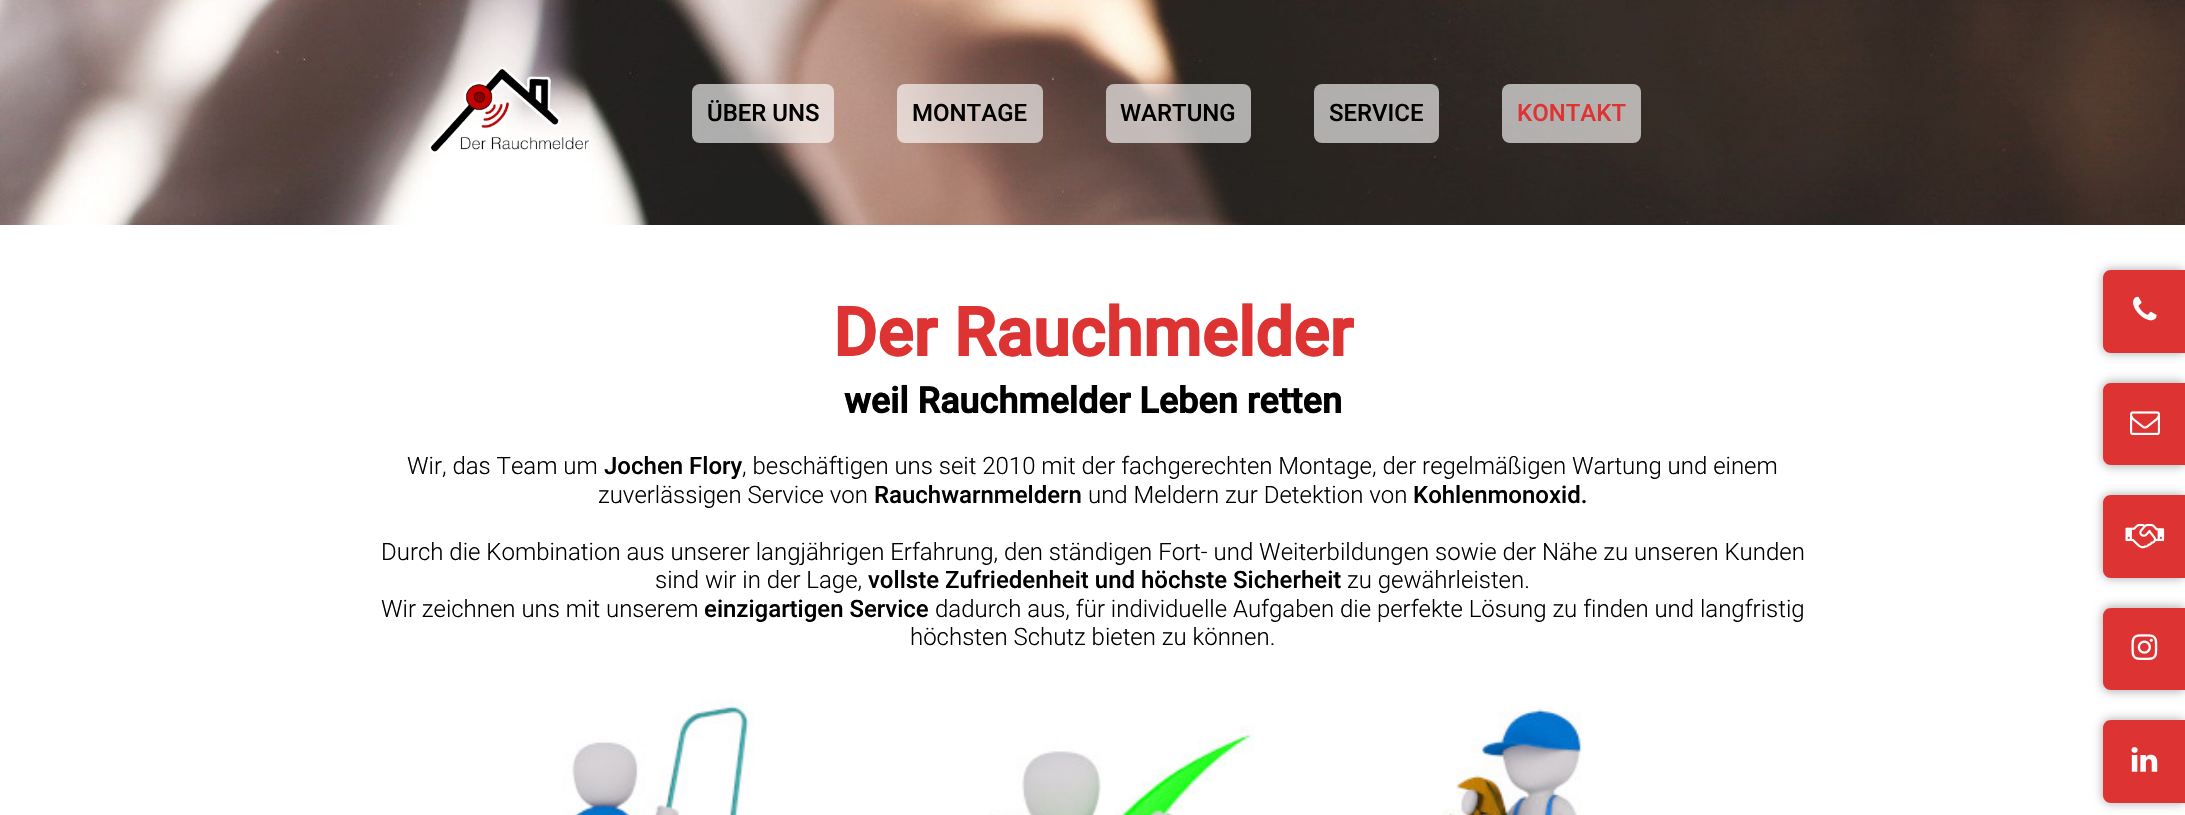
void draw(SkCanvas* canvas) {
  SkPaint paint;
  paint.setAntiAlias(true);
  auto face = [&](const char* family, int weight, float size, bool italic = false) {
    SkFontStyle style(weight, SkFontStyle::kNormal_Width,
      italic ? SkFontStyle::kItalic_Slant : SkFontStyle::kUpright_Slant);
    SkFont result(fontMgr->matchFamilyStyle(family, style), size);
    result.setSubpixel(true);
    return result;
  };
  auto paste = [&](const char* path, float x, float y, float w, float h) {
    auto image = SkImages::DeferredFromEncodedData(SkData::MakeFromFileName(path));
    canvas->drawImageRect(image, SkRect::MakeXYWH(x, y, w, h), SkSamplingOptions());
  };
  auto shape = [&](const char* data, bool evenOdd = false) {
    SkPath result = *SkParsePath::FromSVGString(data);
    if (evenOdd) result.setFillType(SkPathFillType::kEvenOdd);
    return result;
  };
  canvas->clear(0xffffffff);
  paste("img/1.png", 0, 0, 2185, 225);
  paste("img/2.png", 428, 66, 163, 88);
  paint.setColor(0xa1ffffff);
  canvas->drawRoundRect(SkRect::MakeXYWH(692, 84, 142, 59), 8, 8, paint);
  canvas->drawRoundRect(SkRect::MakeXYWH(897, 84, 146, 59), 8, 8, paint);
  canvas->drawRoundRect(SkRect::MakeXYWH(1106, 84, 145, 59), 8, 8, paint);
  canvas->drawRoundRect(SkRect::MakeXYWH(1314, 84, 125, 59), 8, 8, paint);
  canvas->drawRoundRect(SkRect::MakeXYWH(1502, 84, 139, 59), 8, 8, paint);
  paste("img/3.png", 562, 698, 193, 117);
  paste("img/4.png", 989, 725, 265, 90);
  paste("img/5.png", 1442, 707, 140, 108);
  paint.setColor(0x4a000000);
  paint.setMaskFilter(SkMaskFilter::MakeBlur(kNormal_SkBlurStyle, 5));
  canvas->drawRoundRect(SkRect::MakeXYWH(2102, 269, 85, 85), 9, 9, paint);
  paint.setMaskFilter(nullptr);
  paint.setColor(0xffdd3333);
  canvas->drawPath(shape("M2111 270H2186V353H2111C2106.5 353 2103 349.5 2103 345V278C2103 273.5 2106.5 270 2111 270Z"), paint);
  paste("img/6.png", 2133, 296, 24, 25);
  paint.setColor(0x4a000000);
  paint.setMaskFilter(SkMaskFilter::MakeBlur(kNormal_SkBlurStyle, 5));
  canvas->drawRoundRect(SkRect::MakeXYWH(2102, 381, 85, 86), 9, 9, paint);
  paint.setMaskFilter(nullptr);
  paint.setColor(0xffdd3333);
  canvas->drawPath(shape("M2111 383H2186V465H2111C2106.5 465 2103 461.5 2103 457V391C2103 386.5 2106.5 383 2111 383Z"), paint);
  paste("img/7.png", 2130, 411, 30, 24);
  paint.setColor(0x4a000000);
  paint.setMaskFilter(SkMaskFilter::MakeBlur(kNormal_SkBlurStyle, 5));
  canvas->drawRoundRect(SkRect::MakeXYWH(2102, 494, 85, 85), 9, 9, paint);
  paint.setMaskFilter(nullptr);
  paint.setColor(0xffdd3333);
  canvas->drawPath(shape("M2111 495H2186V578H2111C2106.5 578 2103 574.5 2103 570V503C2103 498.5 2106.5 495 2111 495Z"), paint);
  paste("img/8.png", 2125, 523, 40, 26);
  paint.setColor(0x4a000000);
  paint.setMaskFilter(SkMaskFilter::MakeBlur(kNormal_SkBlurStyle, 5));
  canvas->drawRoundRect(SkRect::MakeXYWH(2102, 606, 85, 86), 9, 9, paint);
  paint.setMaskFilter(nullptr);
  paint.setColor(0xffdd3333);
  canvas->drawPath(shape("M2111 608H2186V690H2111C2106.5 690 2103 686.5 2103 682V616C2103 611.5 2106.5 608 2111 608Z"), paint);
  paste("img/9.png", 2131, 634, 27, 26);
  paint.setColor(0x4a000000);
  paint.setMaskFilter(SkMaskFilter::MakeBlur(kNormal_SkBlurStyle, 5));
  canvas->drawRoundRect(SkRect::MakeXYWH(2102, 719, 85, 85), 9, 9, paint);
  paint.setMaskFilter(nullptr);
  paint.setColor(0xffdd3333);
  canvas->drawPath(shape("M2111 720H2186V803H2111C2106.5 803 2103 799.5 2103 795V728C2103 723.5 2106.5 720 2111 720Z"), paint);
  paste("img/10.png", 2131, 747, 27, 25);
  auto f0 = face("Roboto", 500, 24);
  paint.setColor(0xff000000);
  {
    const struct { const char* s; float x, y; } items[] = {
      {"ÜBER UNS", 707, 121},
      {"MONTAGE", 912, 121},
      {"WARTUNG", 1120, 121},
      {"SERVICE", 1329, 121},
    };
    for (auto [s, x, y] : items) {
      canvas->drawString(s, x, y, f0, paint);
    }
  }
  paint.setColor(0xffdd3333);
  canvas->drawString("KONTAKT", 1517, 121, f0, paint);
  auto f1 = face("Roboto", 700, 67.5f);
  canvas->drawString("Der Rauchmelder", 833, 356, f1, paint);
  auto f2 = face("Roboto", 700, 36);
  paint.setColor(0xff000000);
  canvas->drawString("weil Rauchmelder Leben retten", 844, 413, f2, paint);
  auto f3 = face("Roboto", 300, 24);
  canvas->drawString("Wir, das Team um", 407, 474, f3, paint);
  canvas->drawString("Jochen Flory", 604, 474, f0, paint);
  canvas->drawString(", beschäftigen uns seit 2010 mit der fachgerechten Montage, der regelmäßigen Wartung und einem", 742, 474, f3, paint);
  canvas->drawString("zuverlässigen Service von", 598, 503, f3, paint);
  canvas->drawString("Rauchwarnmeldern", 874, 503, f0, paint);
  canvas->drawString("und Meldern zur Detektion von", 1088, 503, f3, paint);
  canvas->drawString("Kohlenmonoxid.", 1413, 503, f0, paint);
  canvas->drawString("Durch die Kombination aus unserer langjährigen Erfahrung, den ständigen Fort- und Weiterbildungen sowie der Nähe zu unseren Kunden", 381, 560, f3, paint);
  canvas->drawString("sind wir in der Lage,", 655, 588, f3, paint);
  canvas->drawString("vollste Zufriedenheit und höchste Sicherheit", 868, 588, f0, paint);
  canvas->drawString("zu gewährleisten.", 1347, 588, f3, paint);
  canvas->drawString("Wir zeichnen uns mit unserem", 381, 617, f3, paint);
  canvas->drawString("einzigartigen Service", 704, 617, f0, paint);
  canvas->drawString("dadurch aus, für individuelle Aufgaben die perfekte Lösung zu finden und langfristig", 935, 617, f3, paint);
  canvas->drawString("höchsten Schutz bieten zu können.", 910, 645, f3, paint);
}
